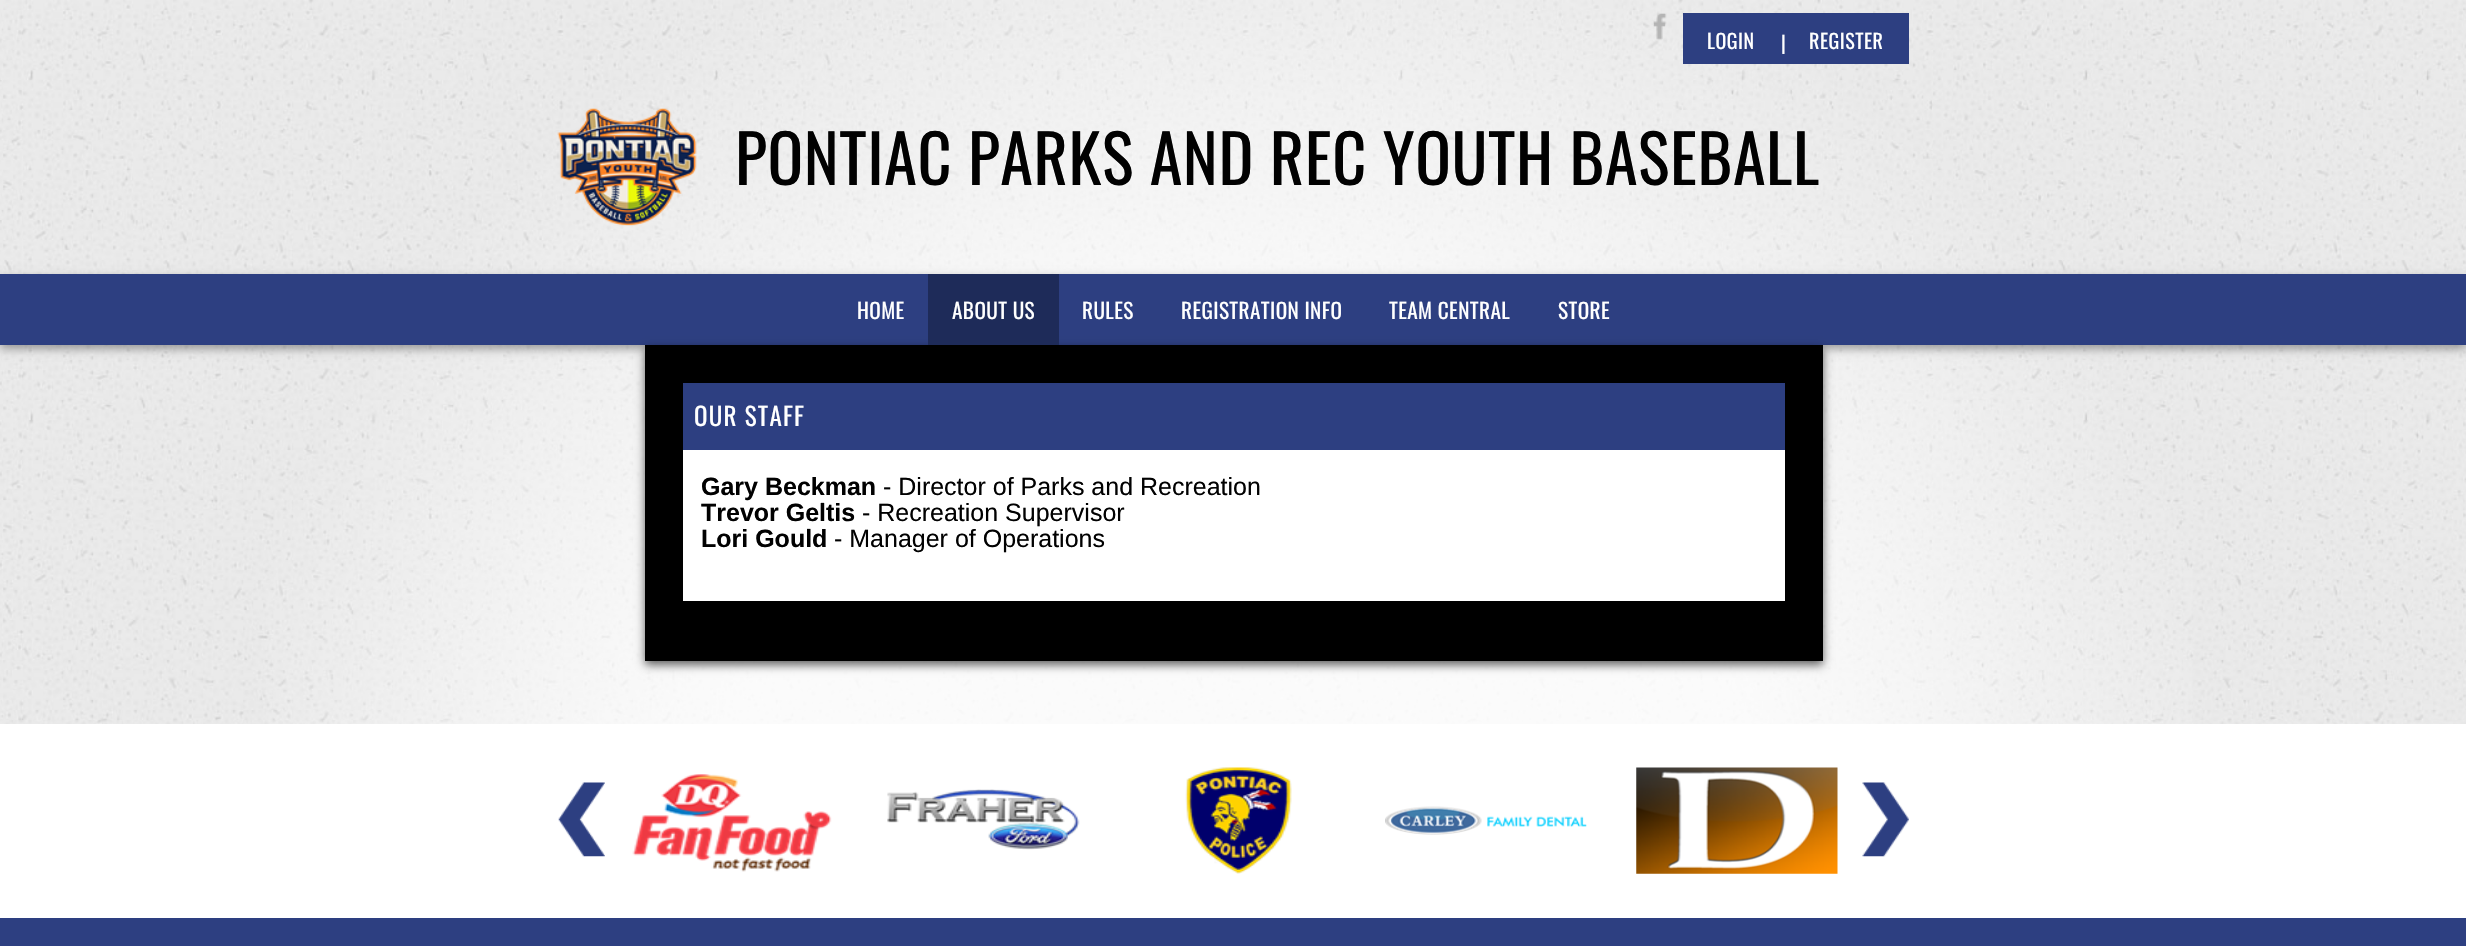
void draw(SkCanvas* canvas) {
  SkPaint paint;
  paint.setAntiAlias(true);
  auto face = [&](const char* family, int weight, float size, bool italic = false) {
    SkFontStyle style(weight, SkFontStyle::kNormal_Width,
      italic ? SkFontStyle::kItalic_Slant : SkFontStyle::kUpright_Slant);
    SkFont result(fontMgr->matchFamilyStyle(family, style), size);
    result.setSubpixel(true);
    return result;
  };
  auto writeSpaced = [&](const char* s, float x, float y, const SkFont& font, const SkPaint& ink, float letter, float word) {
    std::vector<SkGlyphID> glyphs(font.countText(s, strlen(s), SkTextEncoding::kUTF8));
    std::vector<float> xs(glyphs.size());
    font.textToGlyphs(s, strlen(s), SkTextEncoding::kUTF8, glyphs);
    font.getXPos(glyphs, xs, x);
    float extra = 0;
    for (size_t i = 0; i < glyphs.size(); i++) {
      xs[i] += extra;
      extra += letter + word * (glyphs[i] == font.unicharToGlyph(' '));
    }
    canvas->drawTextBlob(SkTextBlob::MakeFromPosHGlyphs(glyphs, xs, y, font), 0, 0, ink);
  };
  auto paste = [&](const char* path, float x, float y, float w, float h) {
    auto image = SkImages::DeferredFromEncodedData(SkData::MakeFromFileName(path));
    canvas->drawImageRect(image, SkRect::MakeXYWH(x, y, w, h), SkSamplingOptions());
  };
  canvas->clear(0xffffffff);
  paste("img/1.png", 0, 0, 2466, 724);
  paste("img/2.png", 266, 0, 1926, 724);
  paste("img/3.png", 1653, 13, 14, 27);
  paint.setColor(0xff2d3f81);
  canvas->drawRect(SkRect::MakeXYWH(1683, 13, 226, 51), paint);
  paste("img/4.png", 557, 108, 140, 118);
  paint.setColor(0x59000000);
  paint.setMaskFilter(SkMaskFilter::MakeBlur(kNormal_SkBlurStyle, 4.5f));
  canvas->drawRect(SkRect::MakeXYWH(0, 278, 2466, 71), paint);
  paint.setMaskFilter(nullptr);
  paint.setColor(0xff2d3f81);
  canvas->drawRect(SkRect::MakeXYWH(0, 274, 2466, 71), paint);
  paint.setColor(0x9c000000);
  paint.setMaskFilter(SkMaskFilter::MakeBlur(kNormal_SkBlurStyle, 4.5f));
  canvas->drawRect(SkRect::MakeXYWH(645, 349, 1178, 316), paint);
  paint.setMaskFilter(nullptr);
  {
    const struct { float x, y, w, h; SkColor color; } items[] = {
      {928, 274, 131, 71, 0xff1e2b59},
      {645, 345, 1178, 316, 0xff000000},
      {683, 383, 1102, 67, 0xff2d3f81},
      {683, 450, 1102, 151, 0xffffffff},
    };
    for (auto [x, y, w, h, color] : items) {
      paint.setColor(color);
      canvas->drawRect(SkRect::MakeXYWH(x, y, w, h), paint);
    }
  }
  paste("img/5.png", 558, 782, 47, 75);
  paste("img/6.png", 632, 774, 200, 98);
  paste("img/7.png", 887, 789, 193, 61);
  paste("img/8.png", 1185, 767, 107, 107);
  paste("img/9.png", 1385, 806, 202, 29);
  paste("img/10.png", 1636, 767, 202, 107);
  paste("img/11.png", 1862, 782, 47, 75);
  paint.setColor(0xff2d3f81);
  canvas->drawRect(SkRect::MakeXYWH(0, 918, 2466, 28), paint);
  auto f0 = face("Oswald", 400, 20);
  paint.setColor(0xffffffff);
  {
    const struct { const char* s; float x, y; } items[] = {
      {"LOGIN", 1707, 49},
      {"|", 1781, 51},
      {"REGISTER", 1809, 49},
    };
    for (auto [s, x, y] : items) {
      writeSpaced(s, x, y, f0, paint, 0.5f, 0);
    }
  }
  auto f1 = face("Oswald", 400, 66.25f);
  paint.setColor(0xff010101);
  writeSpaced("PONTIAC PARKS AND REC YOUTH BASEBALL", 735, 185, f1, paint, 0.6f, 0);
  auto f2 = face("Oswald", 400, 21.25f);
  paint.setColor(0xffffffff);
  {
    const struct { const char* s; float x, y; } items[] = {
      {"HOME", 857, 319},
      {"ABOUT US", 952, 319},
      {"RULES", 1082, 319},
      {"REGISTRATION INFO", 1181, 319},
      {"TEAM CENTRAL", 1389, 319},
      {"STORE", 1558, 319},
    };
    for (auto [s, x, y] : items) {
      writeSpaced(s, x, y, f2, paint, 0.4f, 0);
    }
  }
  auto f3 = face("Oswald", 400, 25);
  writeSpaced("OUR STAFF", 694, 426, f3, paint, 1.25f, 0);
  auto f4 = face("Liberation Sans", 700, 25);
  paint.setColor(0xff010101);
  canvas->drawString("Gary Beckman", 701, 495, f4, paint);
  auto f5 = face("Liberation Sans", 400, 25);
  canvas->drawString("- Director of Parks and Recreation", 883, 495, f5, paint);
  canvas->drawString("Trevor Geltis", 701, 521, f4, paint);
  canvas->drawString("- Recreation Supervisor", 862, 521, f5, paint);
  canvas->drawString("Lori Gould", 701, 547, f4, paint);
  canvas->drawString("- Manager of Operations", 834, 547, f5, paint);
}
